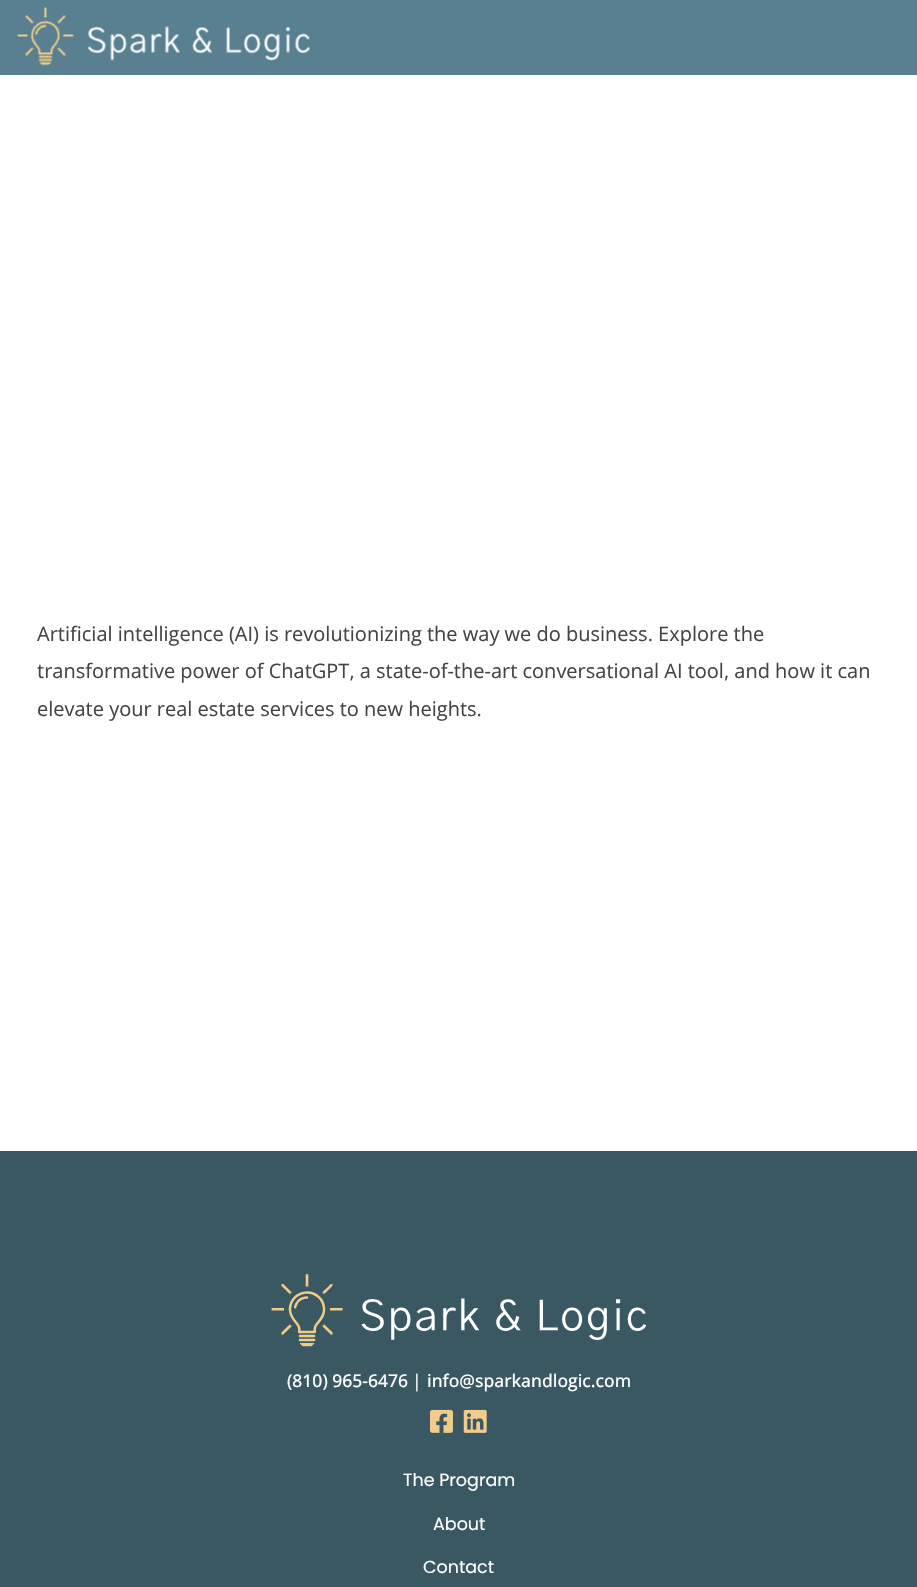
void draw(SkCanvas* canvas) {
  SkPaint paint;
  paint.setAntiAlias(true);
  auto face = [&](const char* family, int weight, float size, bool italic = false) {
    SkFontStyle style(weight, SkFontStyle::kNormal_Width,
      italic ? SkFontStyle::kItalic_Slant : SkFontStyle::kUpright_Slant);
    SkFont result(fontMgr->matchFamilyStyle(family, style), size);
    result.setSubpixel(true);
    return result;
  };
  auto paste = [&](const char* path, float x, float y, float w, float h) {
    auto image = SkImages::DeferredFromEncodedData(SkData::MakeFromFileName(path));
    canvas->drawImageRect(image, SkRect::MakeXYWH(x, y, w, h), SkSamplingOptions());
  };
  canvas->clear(0xffffffff);
  paint.setColor(0xff588090);
  canvas->drawRect(SkRect::MakeXYWH(0, 0, 917, 75), paint);
  paste("img/1.png", 17, 7, 293, 59);
  paint.setColor(0xff395861);
  canvas->drawRect(SkRect::MakeXYWH(0, 1151, 917, 436), paint);
  paste("img/2.png", 271, 1274, 375, 73);
  paste("img/3.png", 430, 1409, 23, 24);
  paste("img/4.png", 463, 1409, 24, 24);
  auto f0 = face("Open Sans", 400, 20);
  paint.setColor(0xff444444);
  {
    const struct { const char* s; float x, y; } items[] = {
      {"Artificial intelligence (AI) is revolutionizing the way we do business. Explore the", 37, 641},
      {"transformative power of ChatGPT, a state-of-the-art conversational AI tool, and how it can", 37, 678},
      {"elevate your real estate services to new heights.", 37, 716},
    };
    for (auto [s, x, y] : items) {
      canvas->drawString(s, x, y, f0, paint);
    }
  }
  auto f1 = face("Open Sans", 500, 17.5f);
  paint.setColor(0xffffffff);
  canvas->drawString("(810) 965-6476", 287, 1387, f1, paint);
  auto f2 = face("Open Sans", 400, 17.5f);
  canvas->drawString("|", 412, 1387, f2, paint);
  canvas->drawString("info@sparkandlogic.com", 427, 1387, f1, paint);
  auto f3 = face("Poppins", 400, 17.5f);
  {
    const struct { const char* s; float x, y; } items[] = {
      {"The Program", 403, 1486},
      {"About", 433, 1530},
      {"Contact", 423, 1573},
    };
    for (auto [s, x, y] : items) {
      canvas->drawString(s, x, y, f3, paint);
    }
  }
}
